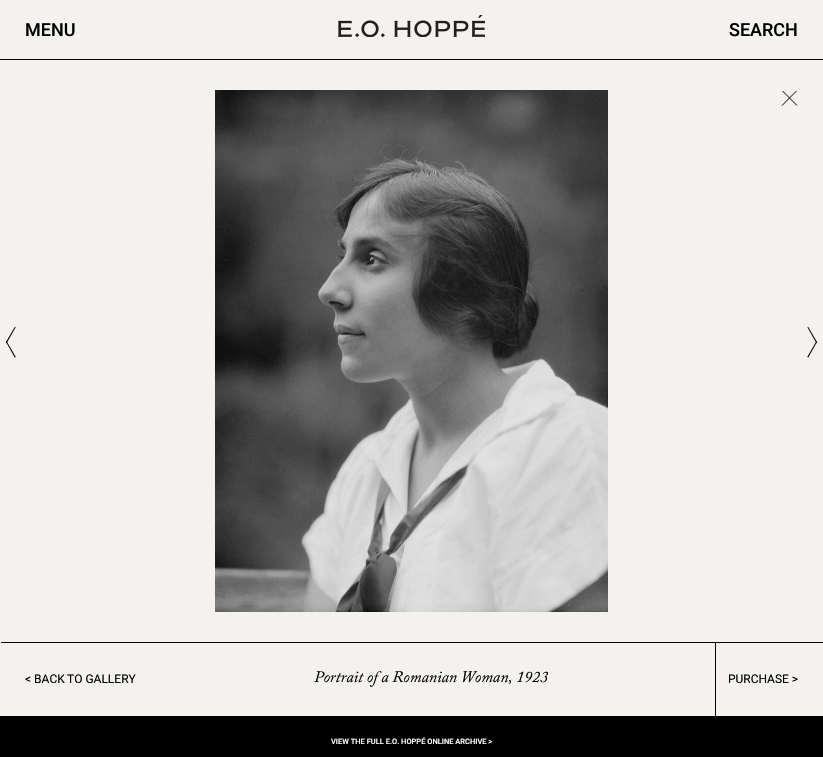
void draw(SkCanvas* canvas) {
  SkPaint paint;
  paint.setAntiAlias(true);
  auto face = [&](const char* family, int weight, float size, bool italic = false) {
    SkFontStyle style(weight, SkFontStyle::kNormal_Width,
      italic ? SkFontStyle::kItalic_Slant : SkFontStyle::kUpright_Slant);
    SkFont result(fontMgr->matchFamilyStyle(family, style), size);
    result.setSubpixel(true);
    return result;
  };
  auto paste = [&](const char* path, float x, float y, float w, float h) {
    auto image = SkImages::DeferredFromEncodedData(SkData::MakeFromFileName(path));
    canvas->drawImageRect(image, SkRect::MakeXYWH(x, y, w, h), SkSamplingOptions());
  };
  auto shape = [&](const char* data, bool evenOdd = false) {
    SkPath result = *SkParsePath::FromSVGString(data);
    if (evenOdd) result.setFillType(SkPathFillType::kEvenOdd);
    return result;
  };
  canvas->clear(0xfff4f2ef);
  paint.setColor(0xff000000);
  canvas->drawRect(SkRect::MakeXYWH(0, 59, 823, 1), paint);
  paste("img/1.png", 338, 15, 147, 22);
  canvas->drawPath(shape("M15 326.5L6 342L6.5 343.5L15.5 327.5Z"), paint);
  canvas->drawPath(shape("M6.5 341L6 342L15 358L15.5 356.5Z"), paint);
  paste("img/2.png", 215, 90, 393, 522);
  canvas->drawPath(shape("M808 326.5L817 342L816.5 343.5L807.5 327.5Z"), paint);
  canvas->drawPath(shape("M816.5 341L817 342L808 358L807.5 356.5Z"), paint);
  paint.setStroke(true);
  paint.setStrokeWidth(1);
  canvas->drawPath(shape("M782.5 91L797 105.5M796.5 91L782 105.5"), paint);
  paint.setStroke(false);
  {
    const struct { float x, y, w, h; SkColor color; } items[] = {
      {715, 642, 1, 74, 0xff000000},
      {1, 642, 822, 1, 0xff000000},
      {0, 716, 823, 41, 0xff000000},
    };
    for (auto [x, y, w, h, color] : items) {
      paint.setColor(color);
      canvas->drawRect(SkRect::MakeXYWH(x, y, w, h), paint);
    }
  }
  auto f0 = face("Roboto", 500, 18);
  canvas->drawString("MENU", 25, 36, f0, paint);
  canvas->drawString("SEARCH", 729, 36, f0, paint);
  auto f1 = face("Roboto", 400, 12);
  canvas->drawString("< BACK", 25, 683, f1, paint);
  canvas->drawString("TO GALLERY", 67, 683, f1, paint);
  auto f2 = face("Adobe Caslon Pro", 400, 16, true);
  canvas->drawString("Portrait of a Romanian Woman, 1923", 314, 682, f2, paint);
  canvas->drawString("PURCHASE >", 728, 683, f1, paint);
  auto f3 = face("Roboto", 500, 7.5f);
  paint.setColor(0xffffffff);
  canvas->drawString("VIEW THE FULL E.O. HOPPÉ ONLINE ARCHIVE >", 331, 744, f3, paint);
}
